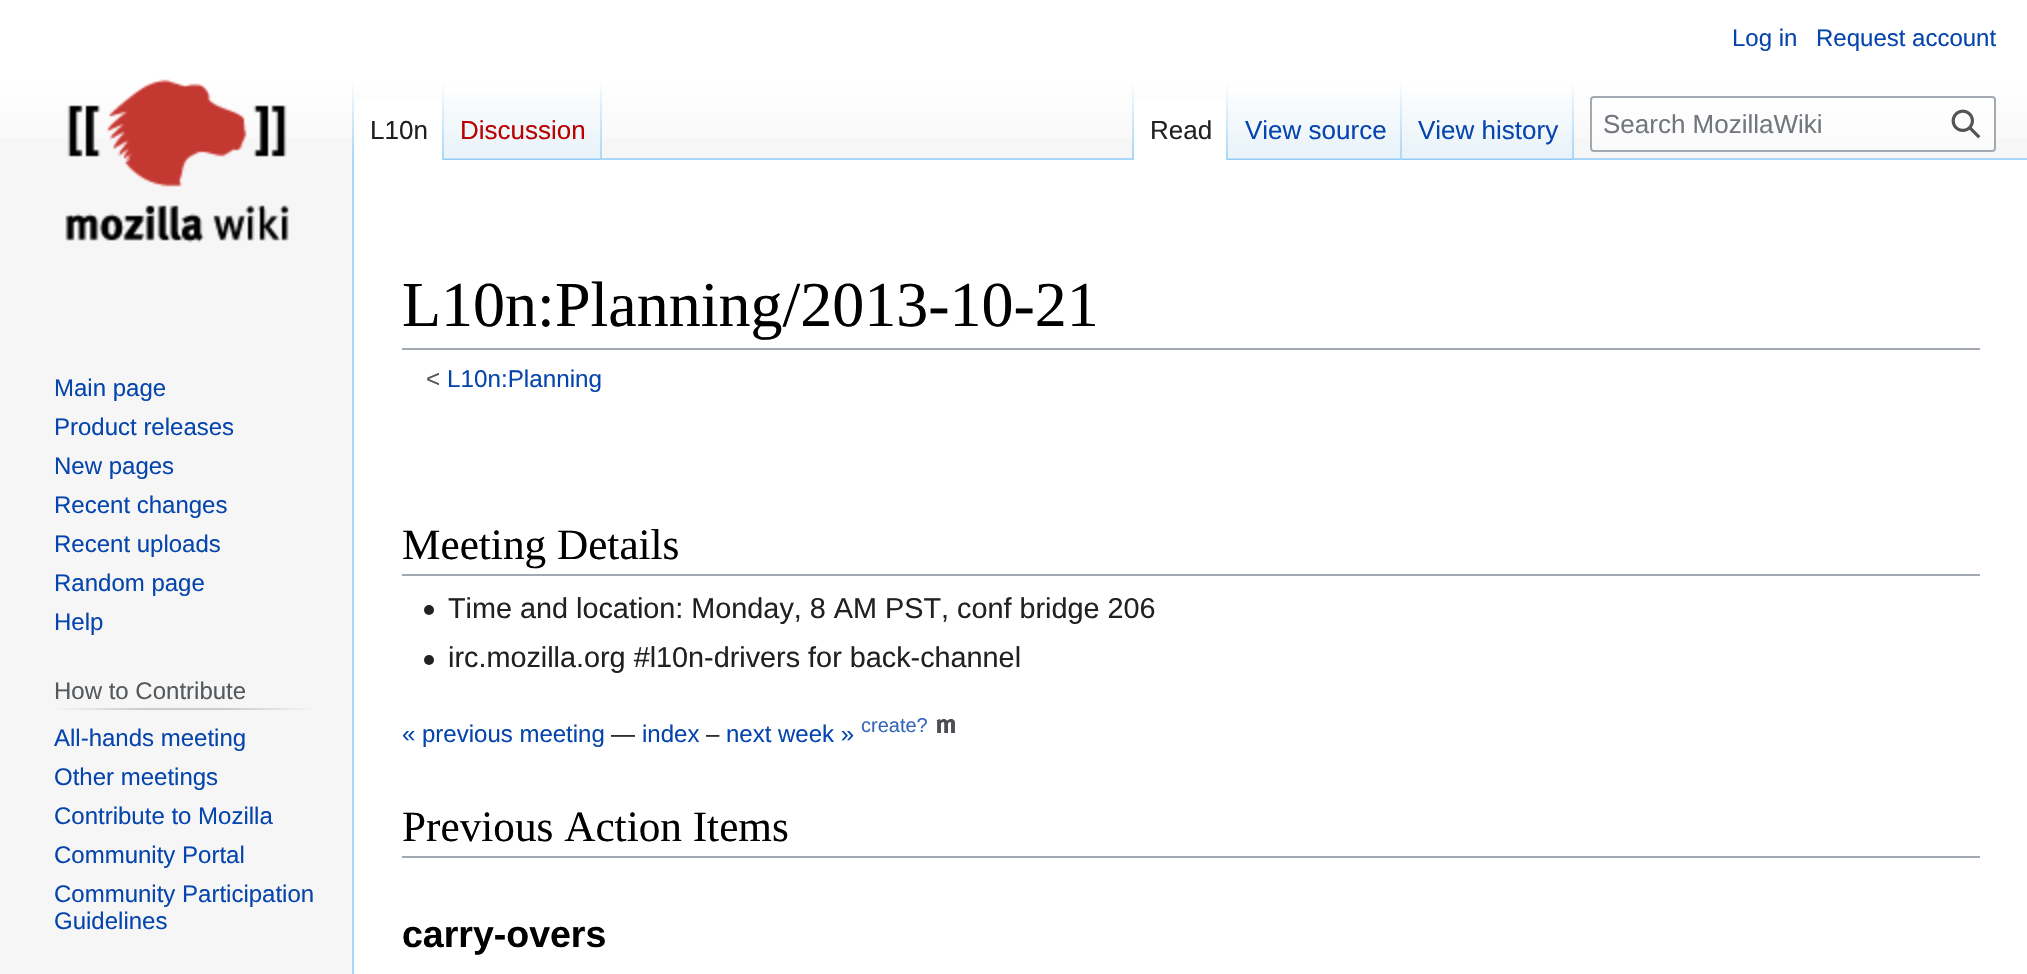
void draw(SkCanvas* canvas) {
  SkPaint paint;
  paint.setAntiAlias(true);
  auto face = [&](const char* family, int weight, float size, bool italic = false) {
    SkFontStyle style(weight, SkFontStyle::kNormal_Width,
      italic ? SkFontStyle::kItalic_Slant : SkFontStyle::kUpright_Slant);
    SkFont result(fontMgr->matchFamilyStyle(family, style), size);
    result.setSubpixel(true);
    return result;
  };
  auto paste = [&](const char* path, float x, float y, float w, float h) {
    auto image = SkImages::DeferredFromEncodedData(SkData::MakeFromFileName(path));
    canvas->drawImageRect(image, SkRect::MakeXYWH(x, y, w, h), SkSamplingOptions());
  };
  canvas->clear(0xfff6f6f6);
  {
    const SkColor colors[] = {0xffffffff, 0xfff6f6f6};
    const float stops[] = {0.5f, 1};
    const SkPoint ends[] = {{1014, 0}, {1014, 160}};
    paint.setShader(SkGradientShader::MakeLinear(ends, colors, stops, 2, SkTileMode::kClamp));
    paint.setAlpha(255);
  }
  canvas->drawRect(SkRect::MakeXYWH(0, 0, 2027, 138), paint);
  paint.setShader(nullptr);
  paint.setColor(0xffa7d7f9);
  canvas->drawRect(SkRect::MakeXYWH(352, 158, 2, 816), paint);
  {
    const SkColor colors[] = {0x00a7d7f9, 0xffa7d7f9};
    const float stops[] = {0, 1};
    const SkPoint ends[] = {{353, 80}, {353, 160}};
    paint.setShader(SkGradientShader::MakeLinear(ends, colors, stops, 2, SkTileMode::kClamp));
    paint.setAlpha(255);
  }
  canvas->drawRect(SkRect::MakeXYWH(352, 80, 2, 80), paint);
  paint.setShader(nullptr);
  paint.setColor(0xffffffff);
  canvas->drawRect(SkRect::MakeXYWH(354, 102, 88, 58), paint);
  {
    const SkColor colors[] = {0xffffffff, 0xffa7d7f9};
    const float stops[] = {0, 1};
    const SkPoint ends[] = {{443, 80}, {443, 160}};
    paint.setShader(SkGradientShader::MakeLinear(ends, colors, stops, 2, SkTileMode::kClamp));
    paint.setAlpha(255);
  }
  canvas->drawRect(SkRect::MakeXYWH(442, 80, 2, 80), paint);
  {
    const SkColor colors[] = {0xff77c1f6, 0xffe8f2f8, 0xffffffff};
    const float stops[] = {0, 0.03f, 1};
    const SkPoint ends[] = {{523, 160}, {523, 80}};
    paint.setShader(SkGradientShader::MakeLinear(ends, colors, stops, 3, SkTileMode::kClamp));
    paint.setAlpha(255);
  }
  canvas->drawRect(SkRect::MakeXYWH(444, 92, 158, 68), paint);
  {
    const SkColor colors[] = {0x00a7d7f9, 0xffa7d7f9};
    const float stops[] = {0, 1};
    const SkPoint ends[] = {{601, 80}, {601, 160}};
    paint.setShader(SkGradientShader::MakeLinear(ends, colors, stops, 2, SkTileMode::kClamp));
    paint.setAlpha(255);
  }
  canvas->drawRect(SkRect::MakeXYWH(600, 80, 2, 80), paint);
  paint.setShader(nullptr);
  paint.setColor(0xffa7d7f9);
  canvas->drawRect(SkRect::MakeXYWH(602, 158, 1425, 2), paint);
  {
    const SkColor colors[] = {0x00a7d7f9, 0xffa7d7f9};
    const float stops[] = {0, 1};
    const SkPoint ends[] = {{1133, 80}, {1133, 160}};
    paint.setShader(SkGradientShader::MakeLinear(ends, colors, stops, 2, SkTileMode::kClamp));
    paint.setAlpha(255);
  }
  canvas->drawRect(SkRect::MakeXYWH(1132, 80, 2, 80), paint);
  paint.setShader(nullptr);
  paint.setColor(0xffffffff);
  canvas->drawRect(SkRect::MakeXYWH(1134, 102, 92, 58), paint);
  {
    const SkColor colors[] = {0xffffffff, 0xffa7d7f9};
    const float stops[] = {0, 1};
    const SkPoint ends[] = {{1227, 80}, {1227, 160}};
    paint.setShader(SkGradientShader::MakeLinear(ends, colors, stops, 2, SkTileMode::kClamp));
    paint.setAlpha(255);
  }
  canvas->drawRect(SkRect::MakeXYWH(1226, 80, 2, 80), paint);
  {
    const SkColor colors[] = {0xff77c1f6, 0xffe8f2f8, 0xffffffff};
    const float stops[] = {0, 0.03f, 1};
    const SkPoint ends[] = {{1315, 160}, {1315, 80}};
    paint.setShader(SkGradientShader::MakeLinear(ends, colors, stops, 3, SkTileMode::kClamp));
    paint.setAlpha(255);
  }
  canvas->drawRect(SkRect::MakeXYWH(1228, 92, 174, 68), paint);
  {
    const SkColor colors[] = {0x00a7d7f9, 0xffa7d7f9};
    const float stops[] = {0, 1};
    const SkPoint ends[] = {{1401, 80}, {1401, 160}};
    paint.setShader(SkGradientShader::MakeLinear(ends, colors, stops, 2, SkTileMode::kClamp));
    paint.setAlpha(255);
  }
  canvas->drawRect(SkRect::MakeXYWH(1400, 80, 2, 80), paint);
  {
    const SkColor colors[] = {0xff77c1f6, 0xffe8f2f8, 0xffffffff};
    const float stops[] = {0, 0.03f, 1};
    const SkPoint ends[] = {{1488, 160}, {1488, 80}};
    paint.setShader(SkGradientShader::MakeLinear(ends, colors, stops, 3, SkTileMode::kClamp));
    paint.setAlpha(255);
  }
  canvas->drawRect(SkRect::MakeXYWH(1402, 92, 172, 68), paint);
  {
    const SkColor colors[] = {0x00a7d7f9, 0xffa7d7f9};
    const float stops[] = {0, 1};
    const SkPoint ends[] = {{1573, 80}, {1573, 160}};
    paint.setShader(SkGradientShader::MakeLinear(ends, colors, stops, 2, SkTileMode::kClamp));
    paint.setAlpha(255);
  }
  canvas->drawRect(SkRect::MakeXYWH(1572, 80, 2, 80), paint);
  paint.setShader(nullptr);
  paint.setColor(0x80ffffff);
  canvas->drawRoundRect(SkRect::MakeXYWH(1591, 97, 404, 54), 3, 3, paint);
  paint.setStroke(true);
  paint.setStrokeWidth(2);
  paint.setColor(0xffa2a9b1);
  canvas->drawRoundRect(SkRect::MakeXYWH(1591, 97, 404, 54), 3, 3, paint);
  paste("img/1.png", 1951, 109, 30, 30);
  paste("img/2.png", 65, 79, 224, 164);
  paint.setStroke(false);
  {
    const SkColor colors[] = {0xfff6f6f6, 0xffc8ccd1, 0xffc8ccd1, 0xfff6f6f6};
    const float stops[] = {0, 0.33f, 0.66f, 1};
    const SkPoint ends[] = {{54, 709}, {316, 709}};
    paint.setShader(SkGradientShader::MakeLinear(ends, colors, stops, 4, SkTileMode::kClamp));
    paint.setAlpha(255);
  }
  canvas->drawRect(SkRect::MakeXYWH(54, 708, 262, 2), paint);
  paint.setShader(nullptr);
  {
    const struct { float x, y, w, h; SkColor color; } items[] = {
      {354, 160, 1673, 814, 0xffffffff},
      {402, 348, 1578, 2, 0xffa2a9b1},
      {402, 574, 1578, 2, 0xffa2a9b1},
    };
    for (auto [x, y, w, h, color] : items) {
      paint.setColor(color);
      canvas->drawRect(SkRect::MakeXYWH(x, y, w, h), paint);
    }
  }
  paste("img/3.png", 424, 605, 10, 10);
  paste("img/3.png", 424, 655, 10, 10);
  paste("img/4.png", 936, 719, 19, 14);
  canvas->drawRect(SkRect::MakeXYWH(402, 856, 1578, 2), paint);
  auto f0 = face("Liberation Sans", 400, 24);
  paint.setColor(0xff0645ad);
  canvas->drawString("Log in", 1732, 46, f0, paint);
  canvas->drawString("Request account", 1816, 46, f0, paint);
  auto f1 = face("Liberation Sans", 400, 26);
  paint.setColor(0xff202122);
  canvas->drawString("L10n", 370, 139, f1, paint);
  paint.setColor(0xffba0000);
  canvas->drawString("Discussion", 460, 139, f1, paint);
  paint.setColor(0xff202122);
  canvas->drawString("Read", 1150, 139, f1, paint);
  paint.setColor(0xff0645ad);
  canvas->drawString("View source", 1245, 139, f1, paint);
  canvas->drawString("View history", 1418, 139, f1, paint);
  paint.setColor(0xff72777d);
  canvas->drawString("Search MozillaWiki", 1603, 133, f1, paint);
  paint.setColor(0xff0645ad);
  {
    const struct { const char* s; float x, y; } items[] = {
      {"Main page", 54, 396},
      {"Product releases", 54, 435},
      {"New pages", 54, 474},
      {"Recent changes", 54, 513},
      {"Recent uploads", 54, 552},
      {"Random page", 54, 591},
      {"Help", 54, 630},
    };
    for (auto [s, x, y] : items) {
      canvas->drawString(s, x, y, f0, paint);
    }
  }
  paint.setColor(0xff54595d);
  canvas->drawString("How to Contribute", 54, 699, f0, paint);
  paint.setColor(0xff0645ad);
  {
    const struct { const char* s; float x, y; } items[] = {
      {"All-hands meeting", 54, 746},
      {"Other meetings", 54, 785},
      {"Contribute to Mozilla", 54, 824},
      {"Community Portal", 54, 863},
      {"Community Participation", 54, 902},
      {"Guidelines", 54, 929},
    };
    for (auto [s, x, y] : items) {
      canvas->drawString(s, x, y, f0, paint);
    }
  }
  auto f2 = face("Liberation Serif", 400, 64);
  paint.setColor(0xff000000);
  canvas->drawString("L10n:Planning/2013-10-21", 402, 326, f2, paint);
  auto f3 = face("Liberation Sans", 400, 24.25f);
  paint.setColor(0xff54595d);
  canvas->drawString("<", 426, 387, f3, paint);
  paint.setColor(0xff0645ad);
  canvas->drawString("L10n:Planning", 447, 387, f3, paint);
  auto f4 = face("Liberation Serif", 400, 43.25f);
  paint.setColor(0xff000000);
  canvas->drawString("Meeting Details", 402, 559, f4, paint);
  auto f5 = face("Liberation Sans", 400, 28.8f);
  paint.setColor(0xff202122);
  canvas->drawString("Time and location: Monday, 8 AM PST, conf bridge 206", 448, 618, f5, paint);
  canvas->drawString("irc.mozilla.org #l10n-drivers for back-channel", 448, 667, f5, paint);
  paint.setColor(0xff0645ad);
  canvas->drawString("« previous meeting", 402, 742, f0, paint);
  paint.setColor(0xff202122);
  canvas->drawString("—", 611, 742, f0, paint);
  paint.setColor(0xff0645ad);
  canvas->drawString("index", 642, 742, f0, paint);
  paint.setColor(0xff202122);
  canvas->drawString("–", 706, 742, f0, paint);
  paint.setColor(0xff0645ad);
  canvas->drawString("next week »", 726, 742, f0, paint);
  auto f6 = face("Liberation Sans", 400, 20);
  paint.setColor(0xff3366bb);
  canvas->drawString("create?", 861, 732, f6, paint);
  paint.setColor(0xff000000);
  canvas->drawString("Previous Action Items", 402, 841, f4, paint);
  auto f7 = face("Liberation Sans", 700, 37.5f);
  canvas->drawString("carry-overs", 402, 947, f7, paint);
}
